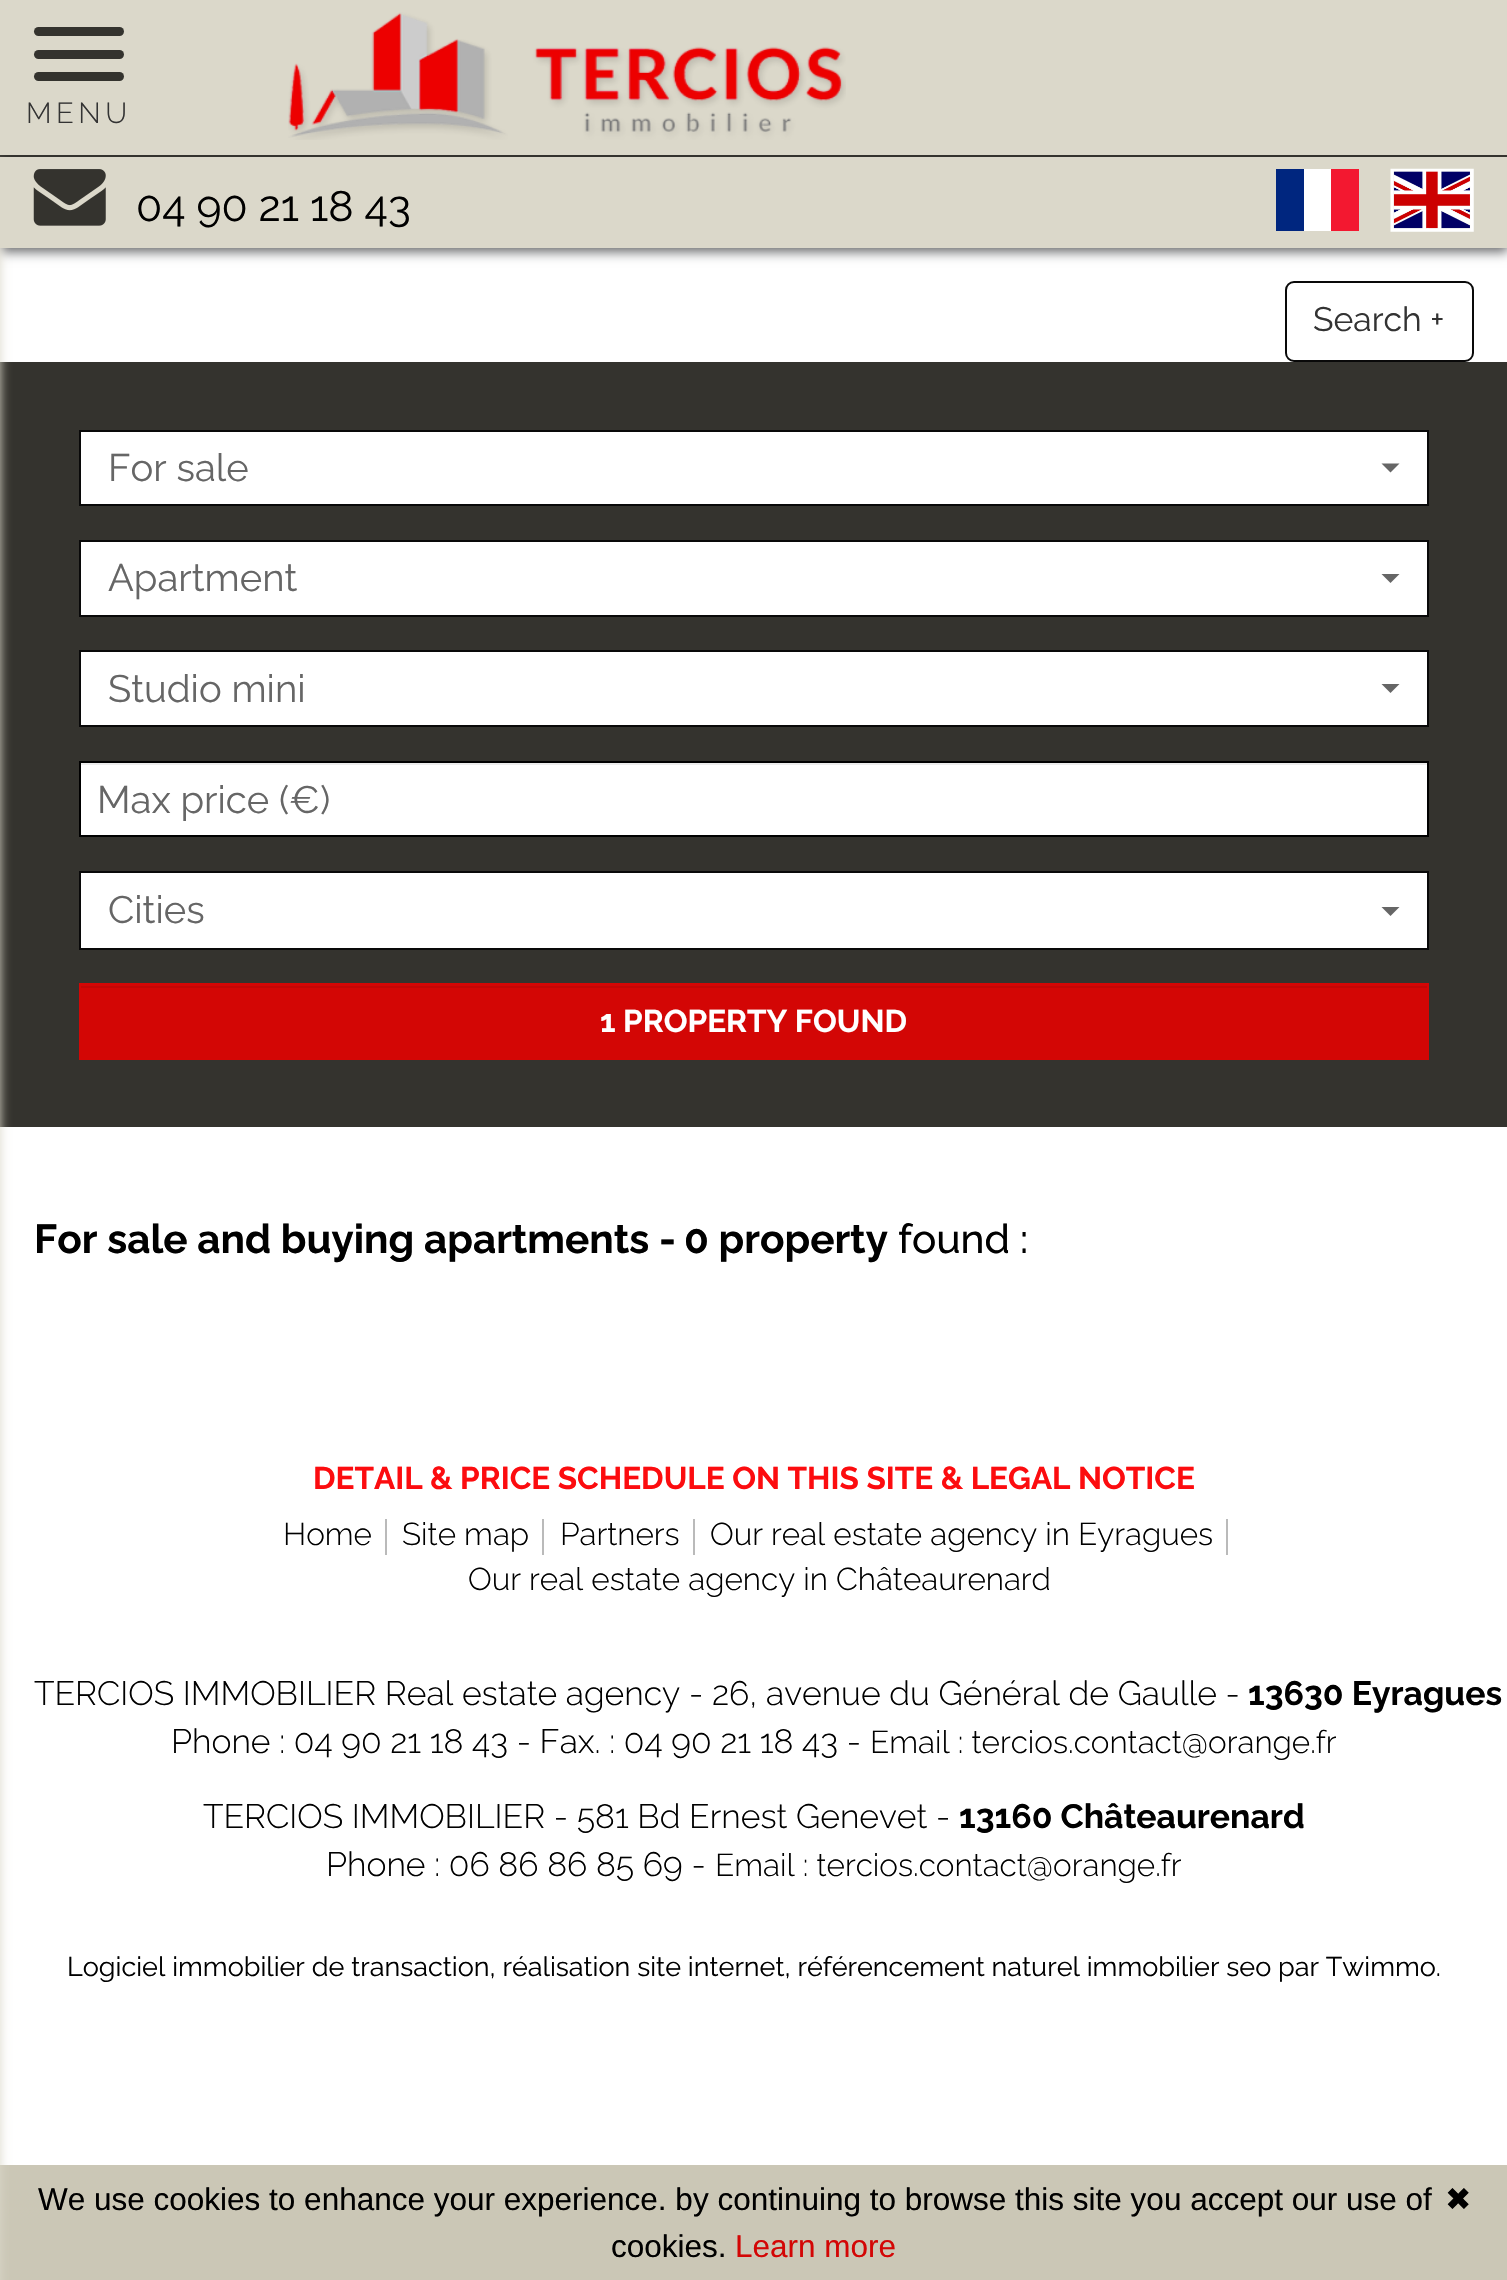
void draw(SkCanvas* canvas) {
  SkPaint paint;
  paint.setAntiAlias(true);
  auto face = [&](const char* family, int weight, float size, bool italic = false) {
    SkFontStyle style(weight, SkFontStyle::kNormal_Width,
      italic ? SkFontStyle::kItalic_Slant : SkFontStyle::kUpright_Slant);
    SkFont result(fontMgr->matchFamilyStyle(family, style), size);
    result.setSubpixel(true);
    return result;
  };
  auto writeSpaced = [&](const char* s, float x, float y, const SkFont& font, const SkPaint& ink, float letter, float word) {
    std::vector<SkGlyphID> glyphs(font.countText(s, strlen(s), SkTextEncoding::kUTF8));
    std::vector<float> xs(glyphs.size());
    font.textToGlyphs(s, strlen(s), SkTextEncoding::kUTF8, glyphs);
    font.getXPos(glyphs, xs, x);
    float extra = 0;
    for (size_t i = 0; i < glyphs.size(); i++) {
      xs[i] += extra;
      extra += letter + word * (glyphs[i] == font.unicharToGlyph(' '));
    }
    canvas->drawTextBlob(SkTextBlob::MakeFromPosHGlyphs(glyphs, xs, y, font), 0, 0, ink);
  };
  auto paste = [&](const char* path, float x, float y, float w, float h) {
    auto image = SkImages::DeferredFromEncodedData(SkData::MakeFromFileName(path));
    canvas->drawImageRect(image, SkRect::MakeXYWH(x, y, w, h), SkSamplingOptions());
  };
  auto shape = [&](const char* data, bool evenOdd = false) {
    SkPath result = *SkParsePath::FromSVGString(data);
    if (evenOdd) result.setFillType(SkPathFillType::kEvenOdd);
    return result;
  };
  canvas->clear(0xffffffff);
  paint.setColor(0xff68696b);
  paint.setMaskFilter(SkMaskFilter::MakeBlur(kNormal_SkBlurStyle, 5.5f));
  canvas->drawRect(SkRect::MakeXYWH(0, 5, 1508, 247), paint);
  paint.setMaskFilter(nullptr);
  {
    const struct { float x, y, w, h; SkColor color; } items[] = {
      {0, 0, 1507, 248, 0xffdbd8ca},
      {0, 155, 1507, 2, 0xff34332e},
      {0, 362, 1507, 765, 0xff34332e},
      {0, 2165, 1507, 115, 0xffcbc7b6},
    };
    for (auto [x, y, w, h, color] : items) {
      paint.setColor(color);
      canvas->drawRect(SkRect::MakeXYWH(x, y, w, h), paint);
    }
  }
  paint.setColor(0xffdbd8ca);
  paint.setMaskFilter(SkMaskFilter::MakeBlur(kNormal_SkBlurStyle, 5.5f));
  canvas->drawRect(SkRect::MakeXYWH(-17, 162, 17, 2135), paint);
  paint.setMaskFilter(nullptr);
  paint.setColor(0xff34332e);
  canvas->drawRoundRect(SkRect::MakeXYWH(34, 27, 90, 9), 4.5f, 4.5f, paint);
  canvas->drawRoundRect(SkRect::MakeXYWH(34, 50, 90, 9), 4.5f, 4.5f, paint);
  canvas->drawRoundRect(SkRect::MakeXYWH(34, 72, 90, 9), 4.5f, 4.5f, paint);
  paste("img/1.png", 288, 12, 558, 128);
  paste("img/2.png", 33, 169, 73, 57);
  {
    const struct { float x, y, w, h; SkColor color; } items[] = {
      {1304, 169, 27, 62, 0xffffffff},
      {1276, 169, 28, 62, 0xff00267f},
      {1331, 169, 28, 62, 0xfff31830},
    };
    for (auto [x, y, w, h, color] : items) {
      paint.setColor(color);
      canvas->drawRect(SkRect::MakeXYWH(x, y, w, h), paint);
    }
  }
  paste("img/3.png", 1390, 168, 84, 64);
  paint.setStroke(true);
  paint.setStrokeWidth(2);
  paint.setColor(0xff090909);
  canvas->drawRoundRect(SkRect::MakeXYWH(1286, 282, 187, 79), 8, 8, paint);
  paint.setStroke(false);
  paint.setColor(0xffffffff);
  canvas->drawRect(SkRect::MakeXYWH(80, 431, 1348, 74), paint);
  paint.setStroke(true);
  paint.setColor(0xff090909);
  canvas->drawRect(SkRect::MakeXYWH(80, 431, 1348, 74), paint);
  paint.setStroke(false);
  paint.setColor(0xff666666);
  canvas->drawPath(shape("M1381.5 463.5H1399.5L1390.5 472.5Z"), paint);
  paint.setColor(0xffffffff);
  canvas->drawRect(SkRect::MakeXYWH(80, 541, 1348, 75), paint);
  paint.setStroke(true);
  paint.setColor(0xff090909);
  canvas->drawRect(SkRect::MakeXYWH(80, 541, 1348, 75), paint);
  paint.setStroke(false);
  paint.setColor(0xff666666);
  canvas->drawPath(shape("M1381.5 574H1399.5L1390.5 583Z"), paint);
  paint.setColor(0xffffffff);
  canvas->drawRect(SkRect::MakeXYWH(80, 651, 1348, 75), paint);
  paint.setStroke(true);
  paint.setColor(0xff090909);
  canvas->drawRect(SkRect::MakeXYWH(80, 651, 1348, 75), paint);
  paint.setStroke(false);
  paint.setColor(0xff666666);
  canvas->drawPath(shape("M1381.5 684H1399.5L1390.5 693Z"), paint);
  paint.setColor(0xffffffff);
  canvas->drawRect(SkRect::MakeXYWH(81, 765, 1346, 70), paint);
  paint.setColor(0xffececec);
  canvas->drawRect(SkRect::MakeXYWH(81, 763, 1346, 2), paint);
  paint.setStroke(true);
  paint.setColor(0xff000000);
  canvas->drawRect(SkRect::MakeXYWH(80, 762, 1348, 74), paint);
  paint.setStroke(false);
  paint.setColor(0xffffffff);
  canvas->drawRect(SkRect::MakeXYWH(80, 872, 1348, 77), paint);
  paint.setStroke(true);
  paint.setColor(0xff090909);
  canvas->drawRect(SkRect::MakeXYWH(80, 872, 1348, 77), paint);
  paint.setStroke(false);
  paint.setColor(0xff666666);
  canvas->drawPath(shape("M1381.5 907H1399.5L1390.5 916Z"), paint);
  {
    const struct { float x, y, w, h; SkColor color; } items[] = {
      {79, 983, 1350, 77, 0xffd30605},
      {81, 986, 1346, 2, 0xffc30605},
      {385, 1519, 2, 36, 0xffbababa},
      {542, 1519, 2, 36, 0xffbababa},
      {693, 1519, 2, 36, 0xffbababa},
      {1226, 1519, 2, 36, 0xffbababa},
    };
    for (auto [x, y, w, h, color] : items) {
      paint.setColor(color);
      canvas->drawRect(SkRect::MakeXYWH(x, y, w, h), paint);
    }
  }
  auto f0 = face("Raleway", 300, 29);
  paint.setColor(0xff333333);
  writeSpaced("MENU", 26, 123, f0, paint, 4.5f, 0);
  auto f1 = face("Raleway", 100, 42.75f);
  paint.setColor(0xff000000);
  canvas->drawString("04 90 21 18 43", 136, 221, f1, paint);
  auto f2 = face("Raleway", 100, 33.75f);
  paint.setColor(0xff333333);
  canvas->drawString("Search +", 1313, 331, f2, paint);
  auto f3 = face("Raleway", 100, 38.25f);
  paint.setColor(0xff666666);
  {
    const struct { const char* s; float x, y; } items[] = {
      {"For sale", 108, 481},
      {"Apartment", 108, 591},
      {"Studio mini", 108, 702},
    };
    for (auto [s, x, y] : items) {
      canvas->drawString(s, x, y, f3, paint);
    }
  }
  canvas->save();
  canvas->clipRect(SkRect::MakeXYWH(97, 776, 1314, 45));
  canvas->drawString("Max price (€)", 97, 813, f3, paint);
  canvas->restore();
  canvas->drawString("Cities", 108, 923, f3, paint);
  auto f4 = face("Raleway", 700, 31.5f);
  paint.setColor(0xffffffff);
  canvas->drawString("1 PROPERTY FOUND", 600, 1032, f4, paint);
  auto f5 = face("Raleway", 700, 40.5f);
  paint.setColor(0xff000000);
  canvas->drawString("For sale and buying apartments -", 34, 1253, f5, paint);
  canvas->drawString("0 property", 684, 1253, f5, paint);
  auto f6 = face("Raleway", 500, 40.5f);
  canvas->drawString("found :", 898, 1253, f6, paint);
  paint.setColor(0xfffc0c0f);
  canvas->drawString("DETAIL & PRICE SCHEDULE ON THIS SITE & LEGAL NOTICE", 313, 1489, f4, paint);
  auto f7 = face("Raleway", 300, 31.5f);
  paint.setColor(0xff000000);
  {
    const struct { const char* s; float x, y; } items[] = {
      {"Home", 283, 1545},
      {"Site map", 402, 1545},
      {"Partners", 560, 1545},
      {"Our real estate agency in Eyragues", 710, 1545},
      {"Our real estate agency in Châteaurenard", 468, 1590},
    };
    for (auto [s, x, y] : items) {
      canvas->drawString(s, x, y, f7, paint);
    }
  }
  auto f8 = face("Raleway", 300, 33.75f);
  canvas->drawString("TERCIOS IMMOBILIER Real estate agency - 26, avenue du Général de Gaulle -", 34, 1705, f8, paint);
  auto f9 = face("Raleway", 700, 33.75f);
  canvas->drawString("13630 Eyragues", 1248, 1705, f9, paint);
  canvas->drawString("Phone : 04 90 21 18 43 - Fax. : 04 90 21 18 43 -", 171, 1753, f8, paint);
  canvas->drawString("Email : tercios.contact@orange.fr", 870, 1753, f7, paint);
  canvas->drawString("TERCIOS IMMOBILIER - 581 Bd Ernest Genevet -", 203, 1828, f8, paint);
  canvas->drawString("13160 Châteaurenard", 959, 1828, f9, paint);
  canvas->drawString("Phone : 06 86 86 85 69 -", 326, 1876, f8, paint);
  canvas->drawString("Email : tercios.contact@orange.fr", 715, 1876, f7, paint);
  auto f10 = face("Raleway", 100, 27);
  canvas->drawString("Logiciel immobilier de transaction, réalisation site internet, référencement naturel immobilier seo par Twimmo.", 67, 1976, f10, paint);
  auto f11 = face("Liberation Sans", 400, 31.5f);
  canvas->drawString("We use cookies to enhance your experience. by continuing to browse this site you accept our use of", 38, 2210, f11, paint);
  auto f12 = face("DejaVu Sans", 400, 31.5f);
  canvas->drawString("✖", 1445, 2210, f12, paint);
  canvas->drawString("cookies.", 611, 2257, f11, paint);
  paint.setColor(0xffd30605);
  canvas->drawString("Learn more", 735, 2257, f11, paint);
}
